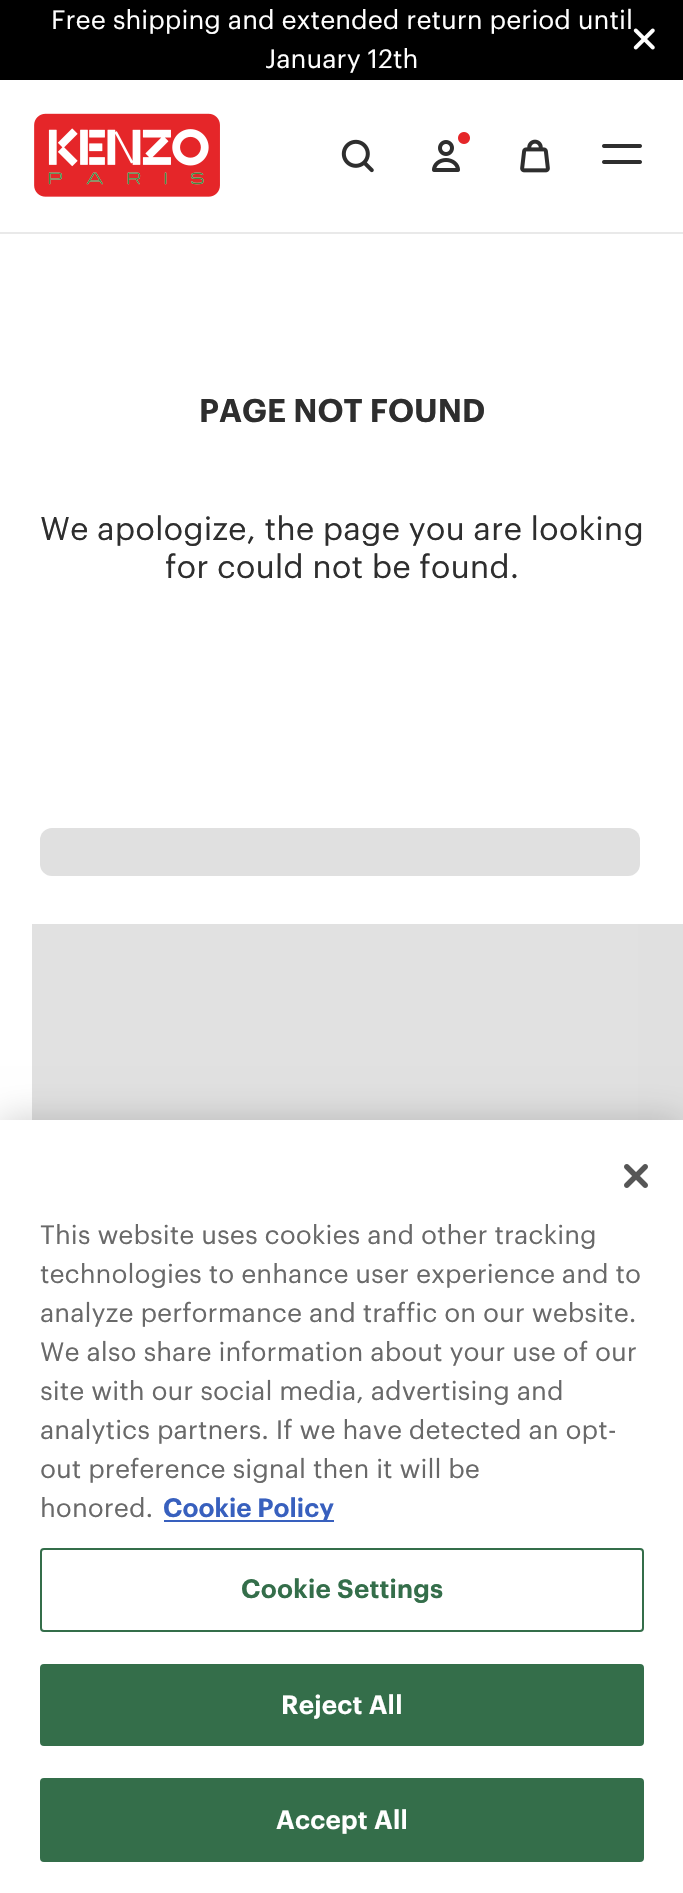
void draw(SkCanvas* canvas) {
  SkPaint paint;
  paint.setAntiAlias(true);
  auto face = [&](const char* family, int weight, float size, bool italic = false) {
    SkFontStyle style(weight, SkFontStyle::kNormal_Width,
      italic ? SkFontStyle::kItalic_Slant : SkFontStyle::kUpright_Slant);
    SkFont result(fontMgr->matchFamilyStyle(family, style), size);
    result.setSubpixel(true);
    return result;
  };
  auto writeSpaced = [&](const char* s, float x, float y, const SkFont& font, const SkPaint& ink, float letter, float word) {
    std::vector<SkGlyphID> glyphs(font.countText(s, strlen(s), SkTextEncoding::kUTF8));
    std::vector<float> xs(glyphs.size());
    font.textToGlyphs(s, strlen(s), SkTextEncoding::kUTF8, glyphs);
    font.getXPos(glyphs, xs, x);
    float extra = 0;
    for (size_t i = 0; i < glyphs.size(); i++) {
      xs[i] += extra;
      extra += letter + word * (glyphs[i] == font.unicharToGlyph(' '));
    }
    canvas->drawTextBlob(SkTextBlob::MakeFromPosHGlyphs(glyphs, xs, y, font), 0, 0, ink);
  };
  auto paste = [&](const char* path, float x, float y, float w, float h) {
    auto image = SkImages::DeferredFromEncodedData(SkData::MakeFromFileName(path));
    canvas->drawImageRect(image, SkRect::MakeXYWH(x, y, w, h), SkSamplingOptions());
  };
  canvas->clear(0xffffffff);
  paint.setColor(0xff000000);
  canvas->drawRect(SkRect::MakeXYWH(0, 0, 683, 80), paint);
  paste("img/1.png", 633, 28, 22, 22);
  paste("img/2.png", 34, 113, 186, 84);
  paste("img/3.png", 341, 139, 33, 34);
  paste("img/4.png", 432, 132, 38, 40);
  paste("img/5.png", 520, 139, 30, 34);
  paste("img/6.png", 602, 144, 40, 20);
  paint.setColor(0xffe9e9e9);
  canvas->drawRect(SkRect::MakeXYWH(0, 232, 683, 2), paint);
  paint.setColor(0xffe0e0e0);
  canvas->drawRoundRect(SkRect::MakeXYWH(40, 828, 600, 48), 12, 12, paint);
  paint.setColor(0xffe1e1e1);
  canvas->drawRect(SkRect::MakeXYWH(32, 924, 606, 196), paint);
  paint.setColor(0xffe0e0e0);
  canvas->drawRect(SkRect::MakeXYWH(638, 924, 45, 196), paint);
  paint.setColor(0x33000000);
  paint.setMaskFilter(SkMaskFilter::MakeBlur(kNormal_SkBlurStyle, 18));
  canvas->drawRect(SkRect::MakeXYWH(0, 1120, 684, 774), paint);
  paint.setMaskFilter(nullptr);
  paint.setColor(0xffffffff);
  canvas->drawRect(SkRect::MakeXYWH(0, 1120, 683, 773), paint);
  paste("img/7.png", 624, 1164, 24, 24);
  paint.setColor(0xff3860be);
  canvas->drawRect(SkRect::MakeXYWH(164, 1520, 170, 2), paint);
  paint.setStroke(true);
  paint.setStrokeWidth(2);
  paint.setColor(0xff346e4a);
  canvas->drawRoundRect(SkRect::MakeXYWH(41, 1549, 602, 82), 3, 3, paint);
  paint.setStroke(false);
  canvas->drawRoundRect(SkRect::MakeXYWH(41, 1665, 602, 80), 3, 3, paint);
  paint.setStroke(true);
  canvas->drawRoundRect(SkRect::MakeXYWH(41, 1665, 602, 80), 3, 3, paint);
  paint.setStroke(false);
  canvas->drawRoundRect(SkRect::MakeXYWH(41, 1779, 602, 82), 3, 3, paint);
  paint.setStroke(true);
  canvas->drawRoundRect(SkRect::MakeXYWH(41, 1779, 602, 82), 3, 3, paint);
  auto f0 = face("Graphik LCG", 400, 26);
  paint.setStroke(false);
  paint.setColor(0xffffffff);
  canvas->drawString("Free shipping and extended return period until", 51, 29, f0, paint);
  canvas->drawString("January 12th", 265, 68, f0, paint);
  auto f1 = face("Graphik", 600, 32);
  paint.setColor(0xff2e2e2e);
  canvas->drawString("PAGE NOT FOUND", 199, 422, f1, paint);
  auto f2 = face("Graphik LCG", 400, 32);
  canvas->drawString("We apologize, the page you are looking", 40, 540, f2, paint);
  canvas->drawString("for could not be found.", 165, 578, f2, paint);
  paint.setColor(0xff696969);
  {
    const struct { const char* s; float x, y; } items[] = {
      {"This website uses cookies and other tracking", 40, 1244},
      {"technologies to enhance user experience and to", 40, 1283},
      {"analyze performance and traffic on our website.", 40, 1322},
      {"We also share information about your use of our", 40, 1361},
      {"site with our social media, advertising and", 40, 1400},
      {"analytics partners. If we have detected an opt-", 40, 1439},
      {"out preference signal then it will be", 40, 1478},
      {"honored.", 40, 1517},
    };
    for (auto [s, x, y] : items) {
      canvas->drawString(s, x, y, f0, paint);
    }
  }
  auto f3 = face("Graphik", 600, 26);
  paint.setColor(0xff3860be);
  canvas->drawString("Cookie Policy", 163, 1517, f3, paint);
  paint.setColor(0xff346e4a);
  writeSpaced("Cookie Settings", 241, 1598, f3, paint, 0.25f, 0);
  paint.setColor(0xffffffff);
  writeSpaced("Reject All", 281, 1714, f3, paint, 0.25f, 0);
  writeSpaced("Accept All", 276, 1829, f3, paint, 0.25f, 0);
}
